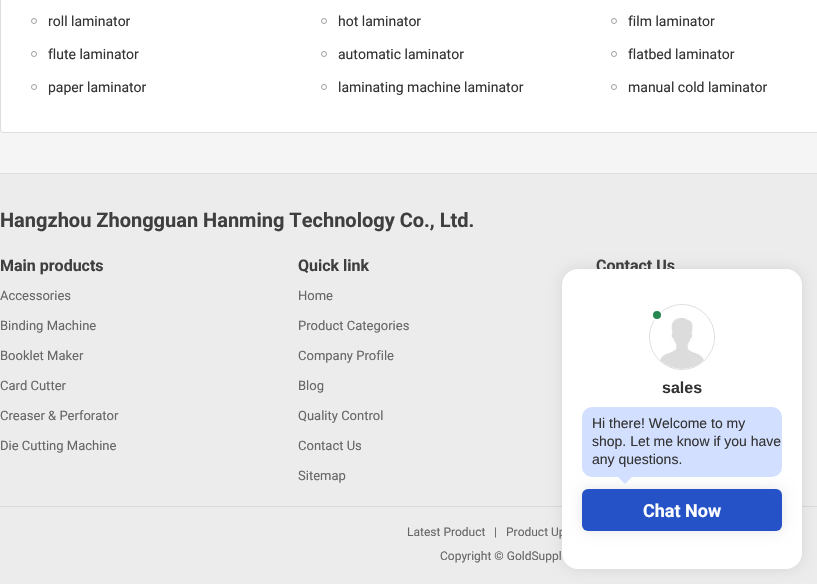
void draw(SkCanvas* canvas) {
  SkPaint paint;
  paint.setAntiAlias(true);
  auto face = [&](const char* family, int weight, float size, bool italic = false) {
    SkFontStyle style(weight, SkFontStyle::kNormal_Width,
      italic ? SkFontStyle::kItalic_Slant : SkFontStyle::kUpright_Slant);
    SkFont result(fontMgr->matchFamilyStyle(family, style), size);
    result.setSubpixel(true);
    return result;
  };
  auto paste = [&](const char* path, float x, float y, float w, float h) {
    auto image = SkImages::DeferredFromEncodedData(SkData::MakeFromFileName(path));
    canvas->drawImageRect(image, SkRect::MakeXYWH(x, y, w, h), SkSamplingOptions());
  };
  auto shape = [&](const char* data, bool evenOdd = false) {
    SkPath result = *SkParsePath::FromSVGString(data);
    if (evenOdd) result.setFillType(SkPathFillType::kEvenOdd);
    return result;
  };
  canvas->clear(0xfff5f5f5);
  paint.setColor(0xffffffff);
  canvas->drawRoundRect(SkRect::MakeXYWH(0.5f, -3.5f, 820, 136), 2.5f, 2.5f, paint);
  paint.setStroke(true);
  paint.setStrokeWidth(1);
  paint.setColor(0xffdddddd);
  canvas->drawRoundRect(SkRect::MakeXYWH(0.5f, -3.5f, 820, 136), 2.5f, 2.5f, paint);
  paint.setColor(0xffa0a0a0);
  canvas->drawCircle(34, 21, 2.5f, paint);
  canvas->drawCircle(324, 21, 2.5f, paint);
  canvas->drawCircle(614, 21, 2.5f, paint);
  canvas->drawCircle(34, 54, 2.5f, paint);
  canvas->drawCircle(324, 54, 2.5f, paint);
  canvas->drawCircle(614, 54, 2.5f, paint);
  canvas->drawCircle(34, 87, 2.5f, paint);
  canvas->drawCircle(324, 87, 2.5f, paint);
  canvas->drawCircle(614, 87, 2.5f, paint);
  paint.setStroke(false);
  paint.setColor(0xffececec);
  canvas->drawRect(SkRect::MakeXYWH(0, 174, 817, 410), paint);
  paint.setColor(0xffdadada);
  canvas->drawRect(SkRect::MakeXYWH(0, 506, 817, 1), paint);
  paint.setColor(0x1a000000);
  paint.setMaskFilter(SkMaskFilter::MakeBlur(kNormal_SkBlurStyle, 6.5f));
  canvas->drawRoundRect(SkRect::MakeXYWH(562, 269, 240, 300), 16, 16, paint);
  paint.setMaskFilter(nullptr);
  paint.setColor(0xffdddddd);
  canvas->drawRect(SkRect::MakeXYWH(0, 173, 817, 1), paint);
  auto f0 = face("Roboto", 400, 14);
  paint.setColor(0xff333333);
  {
    const struct { const char* s; float x, y; } items[] = {
      {"roll laminator", 48, 26},
      {"hot laminator", 338, 26},
      {"film laminator", 628, 26},
      {"flute laminator", 48, 59},
      {"automatic laminator", 338, 59},
      {"flatbed laminator", 628, 59},
      {"paper laminator", 48, 92},
      {"laminating machine laminator", 338, 92},
      {"manual cold laminator", 628, 92},
    };
    for (auto [s, x, y] : items) {
      canvas->drawString(s, x, y, f0, paint);
    }
  }
  auto f1 = face("Roboto", 700, 20);
  paint.setColor(0xff3f3f3f);
  canvas->drawString("Hangzhou Zhongguan Hanming Technology Co., Ltd.", 0, 227, f1, paint);
  auto f2 = face("Roboto", 700, 16);
  canvas->drawString("Main products", 0, 271, f2, paint);
  auto f3 = face("Roboto", 400, 13);
  paint.setColor(0xff666666);
  {
    const struct { const char* s; float x, y; } items[] = {
      {"Accessories", 0, 300},
      {"Binding Machine", 0, 330},
      {"Booklet Maker", 0, 360},
      {"Card Cutter", 0, 390},
      {"Creaser & Perforator", 0, 420},
      {"Die Cutting Machine", 0, 450},
    };
    for (auto [s, x, y] : items) {
      canvas->drawString(s, x, y, f3, paint);
    }
  }
  paint.setColor(0xff3f3f3f);
  canvas->drawString("Quick link", 298, 271, f2, paint);
  paint.setColor(0xff666666);
  {
    const struct { const char* s; float x, y; } items[] = {
      {"Home", 298, 300},
      {"Product Categories", 298, 330},
      {"Company Profile", 298, 360},
      {"Blog", 298, 390},
      {"Quality Control", 298, 420},
      {"Contact Us", 298, 450},
      {"Sitemap", 298, 480},
    };
    for (auto [s, x, y] : items) {
      canvas->drawString(s, x, y, f3, paint);
    }
  }
  paint.setColor(0xff3f3f3f);
  canvas->drawString("Contact Us", 596, 271, f2, paint);
  auto f4 = face("Roboto", 400, 12);
  paint.setColor(0xff666666);
  {
    const struct { const char* s; float x, y; } items[] = {
      {"Latest Product", 407, 536},
      {"|", 494, 536},
      {"Product Up", 506, 536},
    };
    for (auto [s, x, y] : items) {
      canvas->drawString(s, x, y, f4, paint);
    }
  }
  paint.setColor(0xffffffff);
  canvas->drawRoundRect(SkRect::MakeXYWH(562, 269, 240, 300), 16, 16, paint);
  paint.setColor(0x1a000000);
  paint.setMaskFilter(SkMaskFilter::MakeBlur(kNormal_SkBlurStyle, 6.5f));
  canvas->drawRoundRect(SkRect::MakeXYWH(582, 489, 200, 42), 6, 6, paint);
  paint.setMaskFilter(nullptr);
  paint.setColor(0xffd2dfff);
  canvas->drawPath(shape("M618 477H632L625 484Z"), paint);
  canvas->drawRoundRect(SkRect::MakeXYWH(582, 407, 200, 70), 10, 10, paint);
  auto f5 = face("Liberation Sans", 400, 14);
  paint.setColor(0xff333333);
  {
    const struct { const char* s; float x, y; } items[] = {
      {"any questions.", 592, 464},
      {"shop. Let me know if you have", 592, 446},
      {"Hi there! Welcome to my", 592, 428},
    };
    for (auto [s, x, y] : items) {
      canvas->drawString(s, x, y, f5, paint);
    }
  }
  paint.setStroke(true);
  paint.setColor(0xffdddddd);
  canvas->drawCircle(682, 337, 32.5f, paint);
  paste("img/1.png", 650, 305, 64, 64);
  paint.setStroke(false);
  paint.setColor(0xff268750);
  canvas->drawCircle(657, 315, 5, paint);
  paint.setStroke(true);
  paint.setStrokeWidth(2);
  paint.setColor(0xffffffff);
  canvas->drawCircle(657, 315, 5, paint);
  auto f6 = face("Liberation Sans", 700, 16);
  paint.setStroke(false);
  paint.setColor(0xff333333);
  canvas->drawString("sales", 662, 393, f6, paint);
  paint.setColor(0xff2552c7);
  canvas->drawRoundRect(SkRect::MakeXYWH(582, 489, 200, 42), 6, 6, paint);
  auto f7 = face("Roboto", 700, 18);
  paint.setColor(0xffffffff);
  canvas->drawString("Chat Now", 643, 517, f7, paint);
  paint.setColor(0xff666666);
  canvas->drawString("Copyright © GoldSuppl", 440, 560, f4, paint);
}
